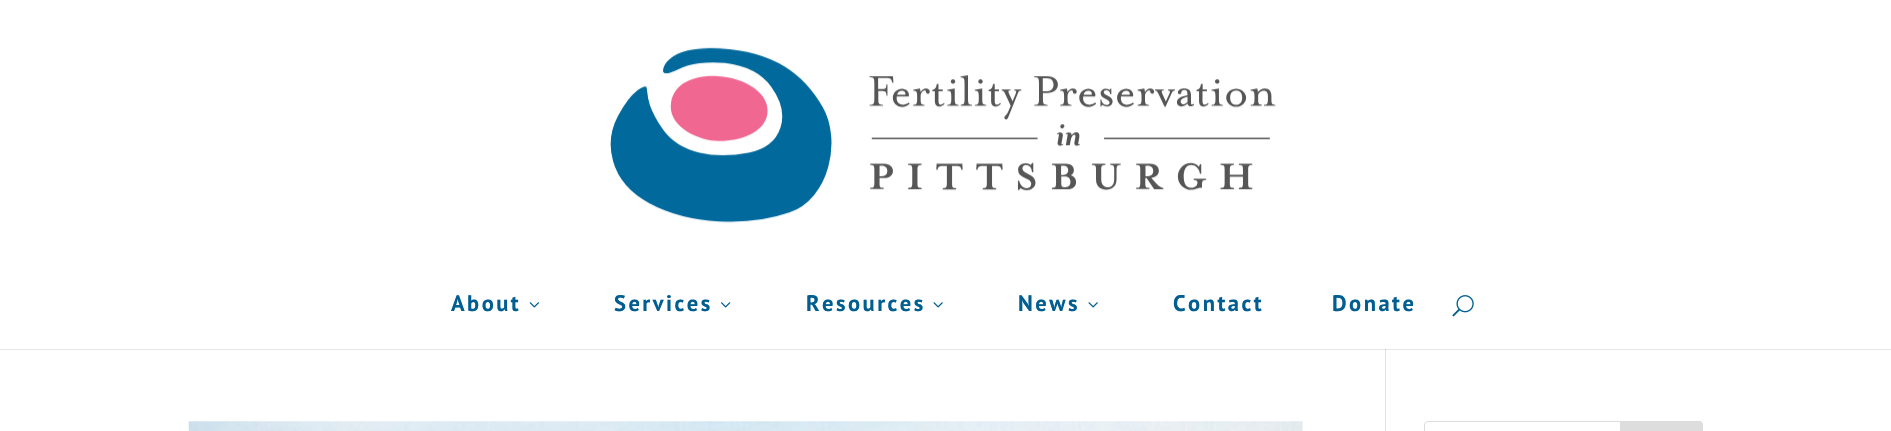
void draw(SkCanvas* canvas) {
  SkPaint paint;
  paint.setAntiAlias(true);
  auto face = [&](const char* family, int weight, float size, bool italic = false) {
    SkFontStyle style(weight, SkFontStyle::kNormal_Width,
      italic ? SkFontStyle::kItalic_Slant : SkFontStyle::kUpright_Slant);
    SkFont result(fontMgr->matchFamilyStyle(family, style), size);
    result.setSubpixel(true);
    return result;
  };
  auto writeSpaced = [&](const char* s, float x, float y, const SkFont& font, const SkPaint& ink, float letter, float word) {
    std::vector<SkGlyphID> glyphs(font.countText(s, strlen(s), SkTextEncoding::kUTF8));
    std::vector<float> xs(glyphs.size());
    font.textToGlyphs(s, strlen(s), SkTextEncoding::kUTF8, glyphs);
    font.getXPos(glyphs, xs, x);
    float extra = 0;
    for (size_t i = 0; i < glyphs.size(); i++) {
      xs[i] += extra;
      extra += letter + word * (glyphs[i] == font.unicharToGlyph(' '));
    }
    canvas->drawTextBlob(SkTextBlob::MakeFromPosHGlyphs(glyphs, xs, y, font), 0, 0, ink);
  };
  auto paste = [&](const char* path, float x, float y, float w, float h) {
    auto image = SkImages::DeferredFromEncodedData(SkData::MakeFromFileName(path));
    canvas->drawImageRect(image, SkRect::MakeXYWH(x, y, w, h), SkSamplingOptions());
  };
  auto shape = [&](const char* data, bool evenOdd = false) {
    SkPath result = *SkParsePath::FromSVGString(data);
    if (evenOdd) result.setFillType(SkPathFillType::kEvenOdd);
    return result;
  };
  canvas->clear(0xffffffff);
  paint.setColor(0xffe6e6e6);
  canvas->drawRect(SkRect::MakeXYWH(0, 349, 1891, 1), paint);
  paste("img/1.png", 610, 47, 666, 176);
  paste("img/2.png", 529, 302, 10, 6);
  paste("img/3.png", 721, 302, 10, 6);
  paste("img/4.png", 933, 302, 10, 6);
  paste("img/4.png", 1088, 302, 10, 6);
  paste("img/5.png", 1452, 295, 22, 22);
  paint.setColor(0xffe2e2e2);
  canvas->drawRect(SkRect::MakeXYWH(1385, 349, 1, 82), paint);
  paint.setColor(0xffcbcbcb);
  canvas->drawRect(SkRect::MakeXYWH(1385, 349, 1, 1), paint);
  paste("img/6.png", 188, 421, 1115, 10);
  paint.setStroke(true);
  paint.setStrokeWidth(1);
  paint.setColor(0xffdddddd);
  canvas->drawRoundRect(SkRect::MakeXYWH(1424.5f, 421.5f, 278, 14), 3.5f, 3.5f, paint);
  paint.setStroke(false);
  canvas->drawPath(shape("M1620.5 421.5H1699C1701 421.5 1702.5 423 1702.5 425V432C1702.5 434 1701 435.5 1699 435.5H1620.5Z"), paint);
  paint.setStroke(true);
  canvas->drawPath(shape("M1620.5 421.5H1699C1701 421.5 1702.5 423 1702.5 425V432C1702.5 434 1701 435.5 1699 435.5H1620.5Z"), paint);
  auto f0 = face("PT Sans", 700, 22.5f);
  paint.setStroke(false);
  paint.setColor(0xff005e90);
  {
    const struct { const char* s; float x, y; } items[] = {
      {"About", 451, 311},
      {"Services", 614, 311},
      {"Resources", 806, 311},
      {"News", 1018, 311},
      {"Contact", 1173, 311},
      {"Donate", 1332, 311},
    };
    for (auto [s, x, y] : items) {
      writeSpaced(s, x, y, f0, paint, 2.5f, 0);
    }
  }
}
